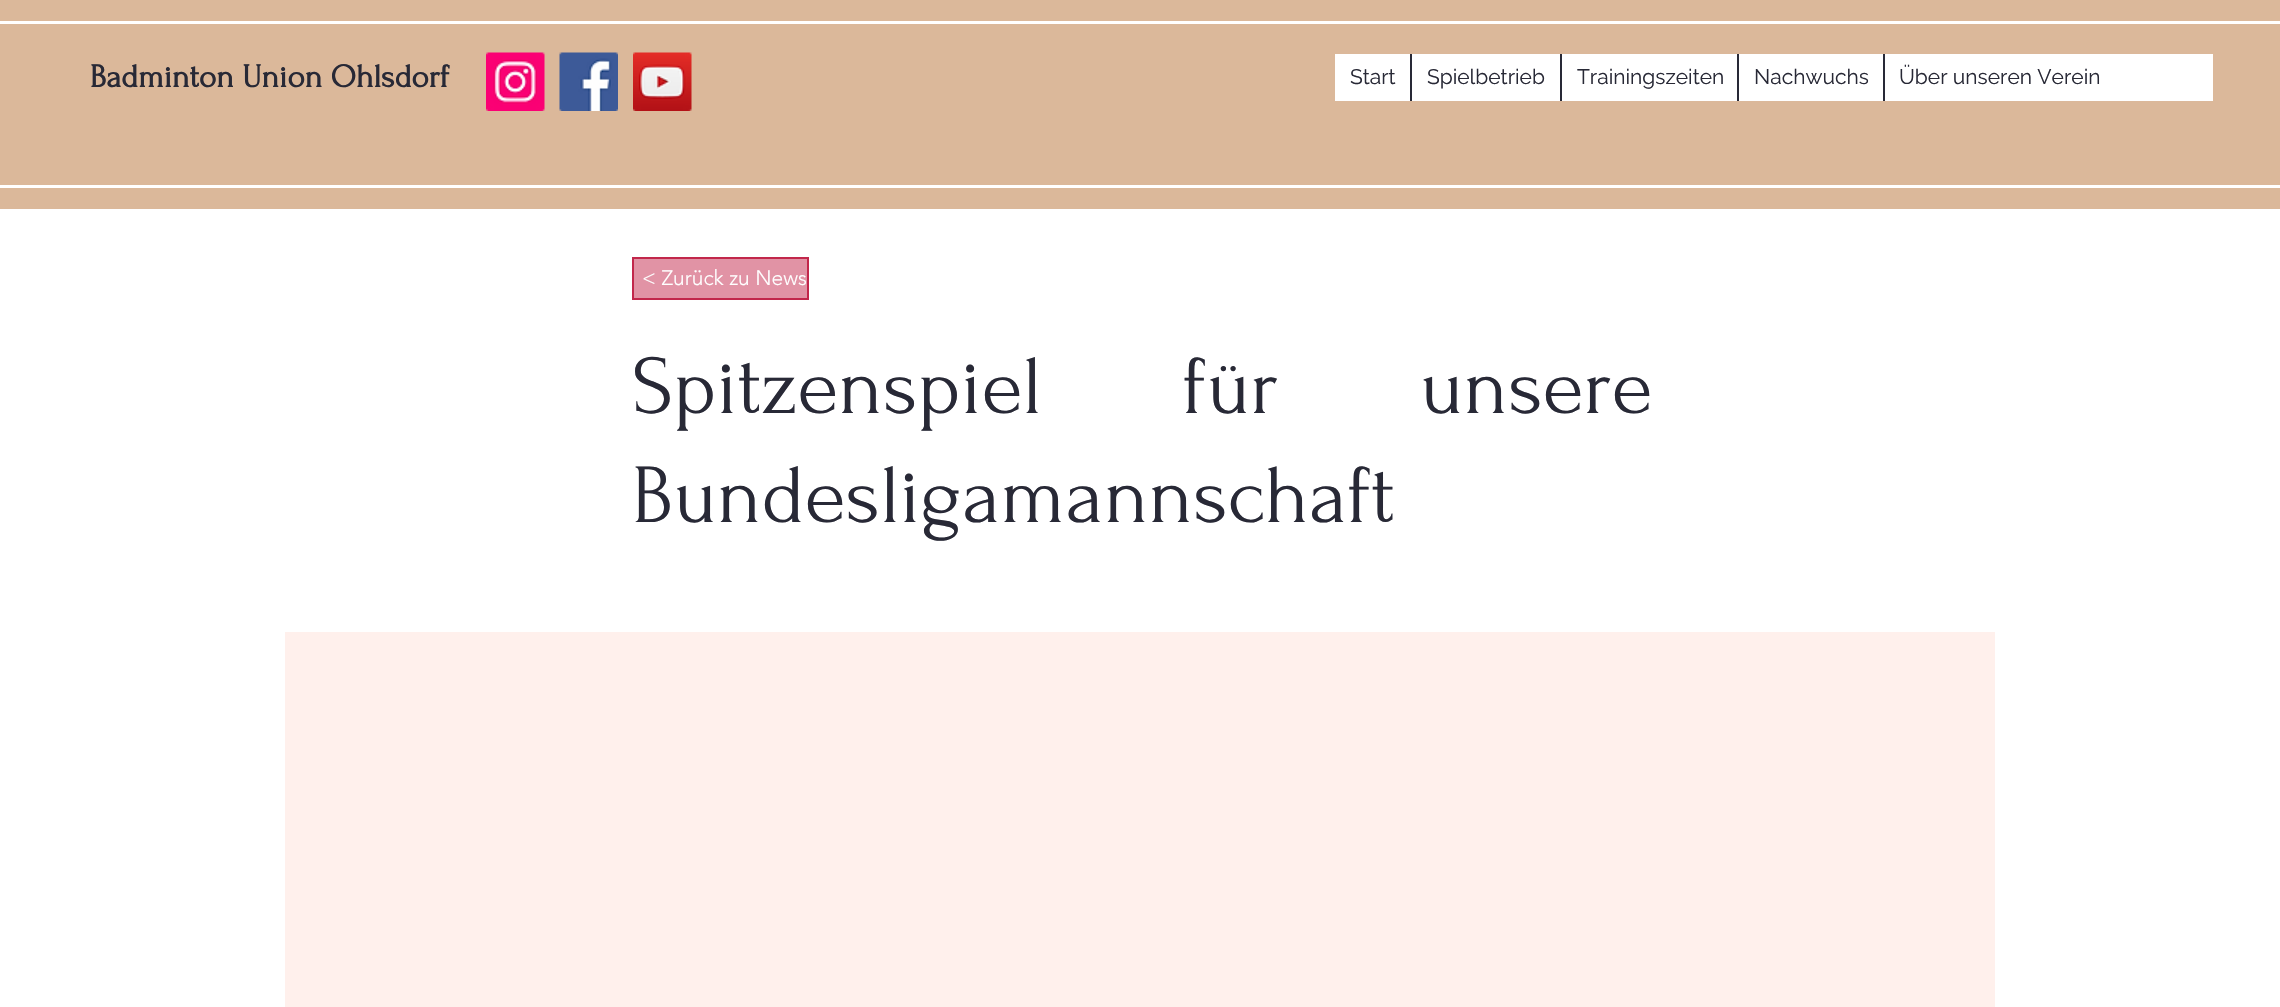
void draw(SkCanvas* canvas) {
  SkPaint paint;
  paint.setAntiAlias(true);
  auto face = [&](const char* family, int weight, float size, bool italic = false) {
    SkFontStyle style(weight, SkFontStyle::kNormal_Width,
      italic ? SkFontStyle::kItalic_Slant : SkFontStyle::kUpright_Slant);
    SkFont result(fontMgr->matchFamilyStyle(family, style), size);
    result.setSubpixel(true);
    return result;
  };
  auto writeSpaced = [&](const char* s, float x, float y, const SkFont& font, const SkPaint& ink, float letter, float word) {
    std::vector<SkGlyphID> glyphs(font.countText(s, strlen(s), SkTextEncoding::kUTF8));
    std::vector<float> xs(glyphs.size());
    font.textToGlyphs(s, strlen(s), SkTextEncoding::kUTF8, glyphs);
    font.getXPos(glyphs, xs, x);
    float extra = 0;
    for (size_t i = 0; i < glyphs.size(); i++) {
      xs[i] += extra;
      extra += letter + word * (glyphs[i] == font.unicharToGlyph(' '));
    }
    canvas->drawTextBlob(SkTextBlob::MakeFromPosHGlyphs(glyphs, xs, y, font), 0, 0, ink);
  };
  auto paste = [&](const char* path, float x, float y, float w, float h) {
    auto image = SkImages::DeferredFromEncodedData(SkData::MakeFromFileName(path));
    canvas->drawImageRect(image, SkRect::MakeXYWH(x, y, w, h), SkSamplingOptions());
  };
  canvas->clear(0xffffffff);
  {
    const struct { float x, y, w, h; SkColor color; } items[] = {
      {0, 0, 2280, 209, 0xffdbb89a},
      {0, 21, 2280, 3, 0xffffffff},
      {0, 185, 2280, 3, 0xffffffff},
    };
    for (auto [x, y, w, h, color] : items) {
      paint.setColor(color);
      canvas->drawRect(SkRect::MakeXYWH(x, y, w, h), paint);
    }
  }
  paste("img/1.png", 486, 52, 59, 59);
  paste("img/2.png", 559, 52, 59, 59);
  paste("img/3.png", 633, 52, 59, 59);
  {
    const struct { float x, y, w, h; SkColor color; } items[] = {
      {1335, 54, 878, 47, 0xffffffff},
      {1410, 54, 2, 47, 0xff282936},
      {1560, 54, 2, 47, 0xff282936},
      {1737, 54, 2, 47, 0xff282936},
      {1883, 54, 2, 47, 0xff282936},
    };
    for (auto [x, y, w, h, color] : items) {
      paint.setColor(color);
      canvas->drawRect(SkRect::MakeXYWH(x, y, w, h), paint);
    }
  }
  paint.setColor(0xffe193a5);
  canvas->drawRect(SkRect::MakeXYWH(633, 258, 175, 41), paint);
  paint.setStroke(true);
  paint.setStrokeWidth(2);
  paint.setColor(0xffc2274b);
  canvas->drawRect(SkRect::MakeXYWH(633, 258, 175, 41), paint);
  paint.setStroke(false);
  paint.setColor(0xfffff0ec);
  canvas->drawRect(SkRect::MakeXYWH(285, 632, 1710, 375), paint);
  auto f0 = face("Forum", 700, 33);
  paint.setColor(0xff282936);
  canvas->drawString("Badminton Union Ohlsdorf", 90, 87, f0, paint);
  auto f1 = face("Raleway", 400, 21);
  {
    const struct { const char* s; float x, y; } items[] = {
      {"Start", 1350, 84},
      {"Spielbetrieb", 1427, 84},
      {"Trainingszeiten", 1577, 84},
      {"Nachwuchs", 1754, 84},
      {"Über unseren Verein", 1899, 84},
    };
    for (auto [s, x, y] : items) {
      canvas->drawString(s, x, y, f1, paint);
    }
  }
  auto f2 = face("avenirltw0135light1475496", 300, 21);
  paint.setColor(0xffffffff);
  canvas->drawString("< Zurück zu News", 642, 285, f2, paint);
  auto f3 = face("Forum", 400, 84);
  paint.setColor(0xff282936);
  writeSpaced("Spitzenspiel für unsere", 632, 413, f3, paint, 0, 119);
  canvas->drawString("Bundesligamannschaft", 632, 522, f3, paint);
}
